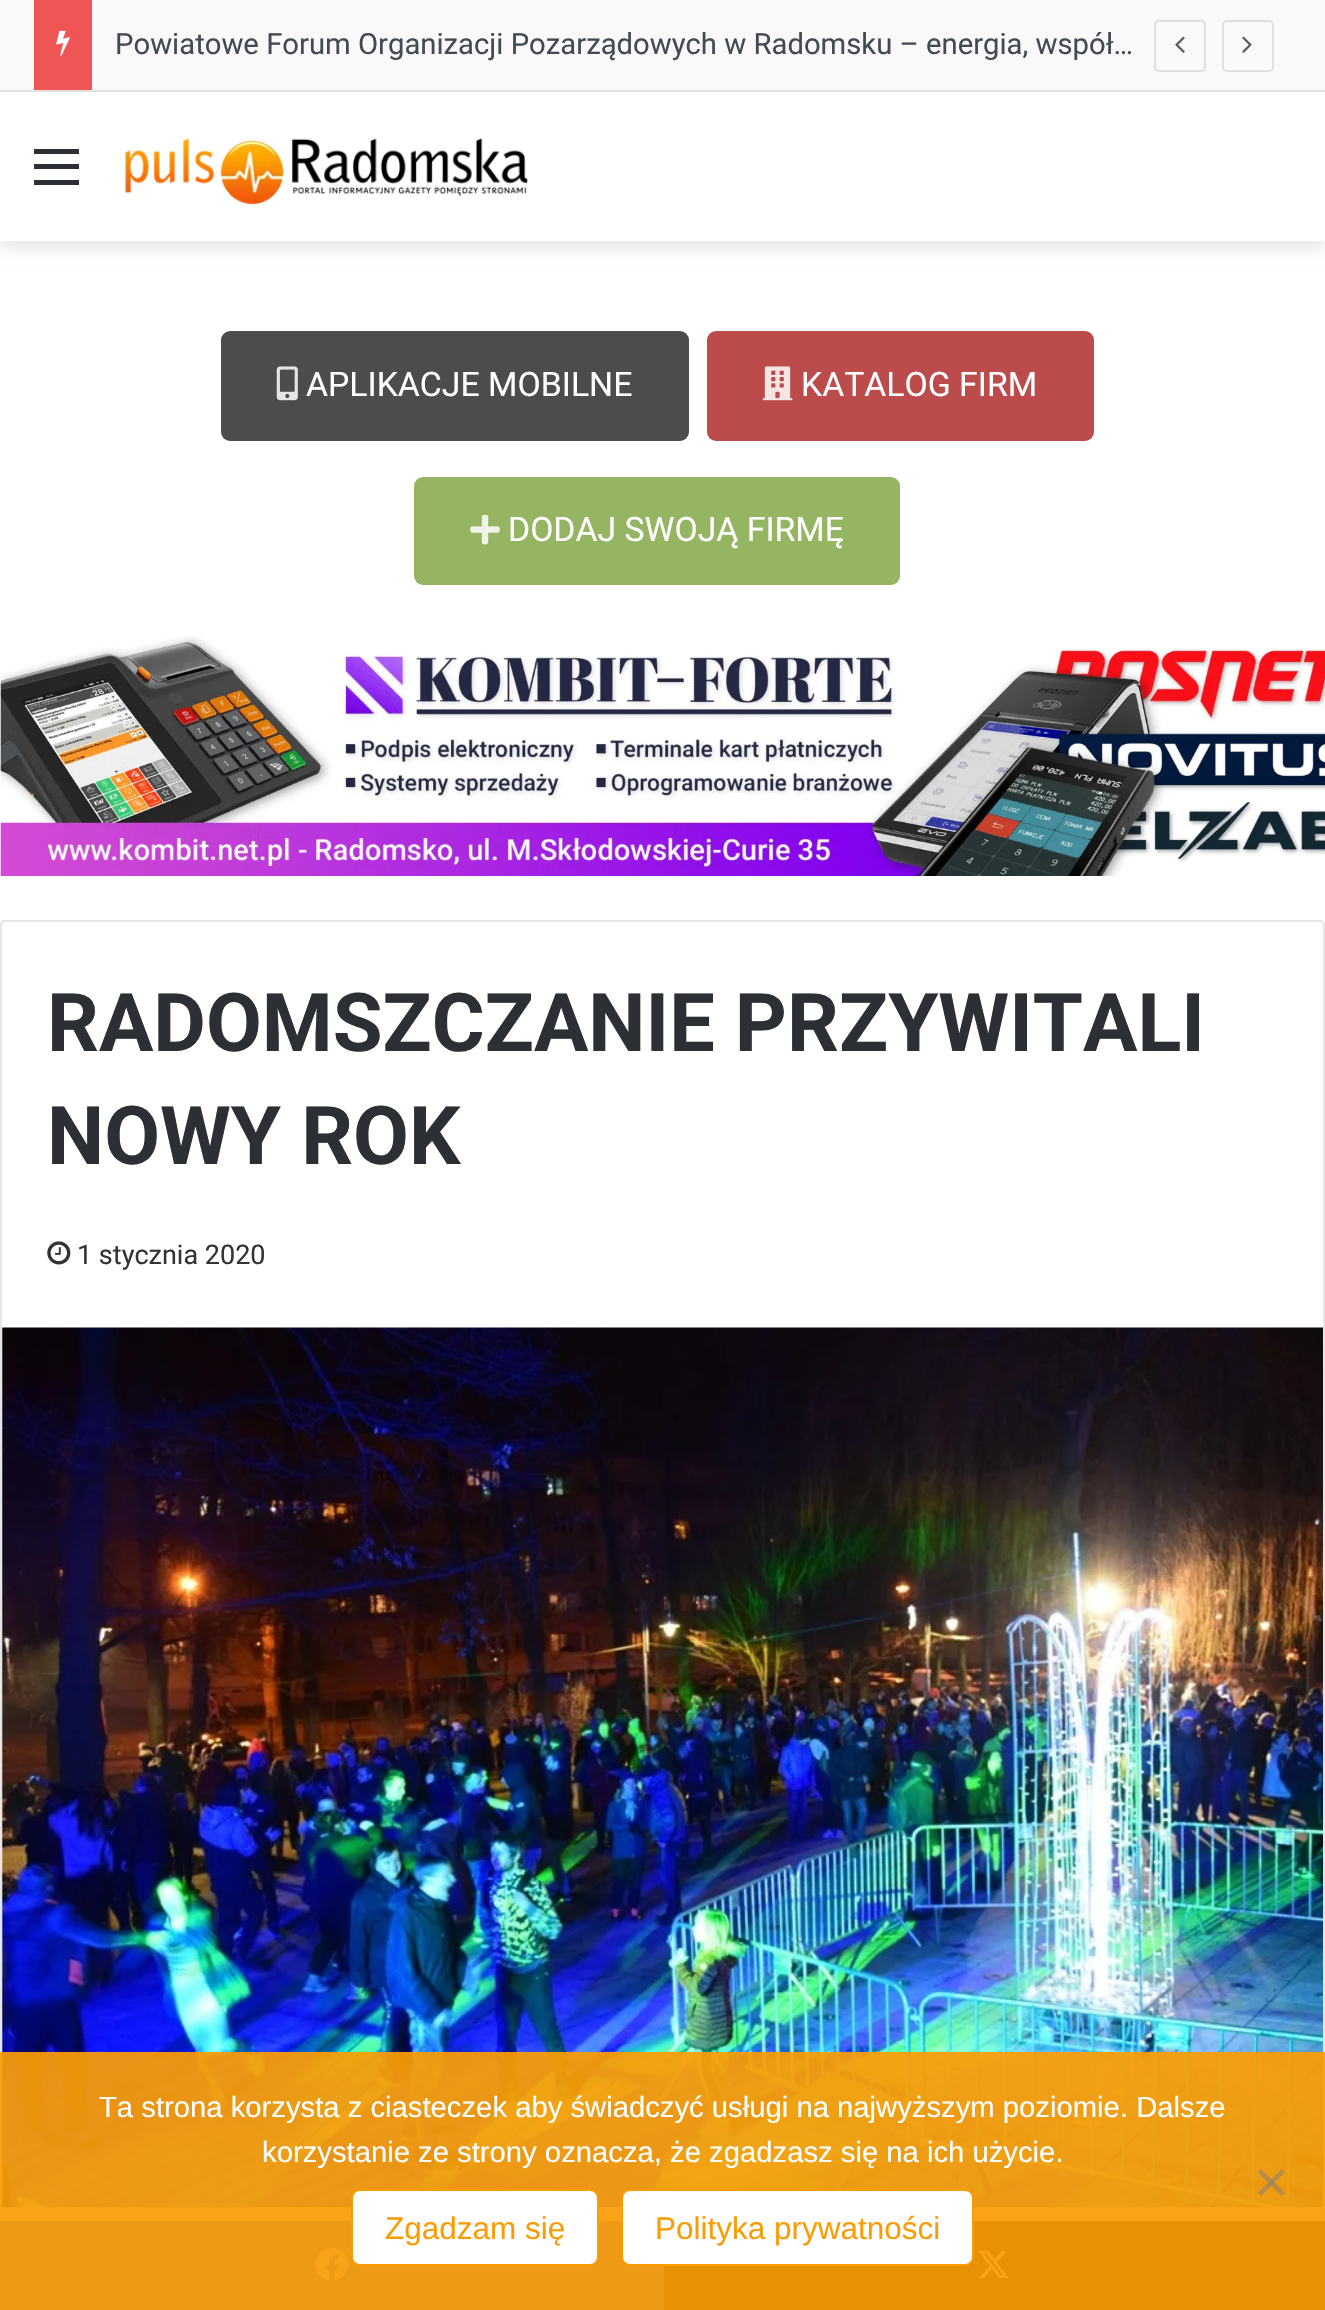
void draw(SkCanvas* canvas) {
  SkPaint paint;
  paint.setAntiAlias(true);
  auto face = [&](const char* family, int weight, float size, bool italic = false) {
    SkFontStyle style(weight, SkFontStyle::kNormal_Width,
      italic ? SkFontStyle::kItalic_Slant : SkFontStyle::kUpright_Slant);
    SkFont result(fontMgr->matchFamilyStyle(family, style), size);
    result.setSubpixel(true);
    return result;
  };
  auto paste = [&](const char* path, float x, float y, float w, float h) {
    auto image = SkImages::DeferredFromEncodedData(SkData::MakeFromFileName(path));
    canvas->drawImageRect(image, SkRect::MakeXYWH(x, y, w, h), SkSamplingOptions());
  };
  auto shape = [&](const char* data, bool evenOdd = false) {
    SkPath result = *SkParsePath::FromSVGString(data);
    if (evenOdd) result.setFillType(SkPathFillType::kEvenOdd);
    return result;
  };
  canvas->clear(0xffffffff);
  paint.setColor(0x1a000000);
  paint.setMaskFilter(SkMaskFilter::MakeBlur(kNormal_SkBlurStyle, 8));
  canvas->drawRect(SkRect::MakeXYWH(0, 99, 1325, 149), paint);
  paint.setMaskFilter(nullptr);
  {
    const struct { float x, y, w, h; SkColor color; } items[] = {
      {0, 0, 1325, 90, 0xfff9f9f9},
      {0, 90, 1325, 2, 0xffe0e0e0},
      {34, 0, 58, 90, 0xfff05555},
    };
    for (auto [x, y, w, h, color] : items) {
      paint.setColor(color);
      canvas->drawRect(SkRect::MakeXYWH(x, y, w, h), paint);
    }
  }
  paste("img/1.png", 56, 30, 14, 26);
  paint.setStroke(true);
  paint.setStrokeWidth(2);
  paint.setColor(0xffe0e0e0);
  canvas->drawRoundRect(SkRect::MakeXYWH(1155, 21, 50, 50), 4, 4, paint);
  paste("img/2.png", 1175, 36, 10, 17);
  canvas->drawRoundRect(SkRect::MakeXYWH(1223, 21, 50, 50), 4, 4, paint);
  paste("img/3.png", 1242, 36, 10, 17);
  paint.setStroke(false);
  {
    const struct { float x, y, w, h; SkColor color; } items[] = {
      {0, 92, 1325, 149, 0xffffffff},
      {34, 164, 45, 5, 0xff2c2f34},
      {34, 149, 45, 5, 0xff2c2f34},
      {34, 180, 45, 5, 0xff2c2f34},
    };
    for (auto [x, y, w, h, color] : items) {
      paint.setColor(color);
      canvas->drawRect(SkRect::MakeXYWH(x, y, w, h), paint);
    }
  }
  paste("img/4.png", 125, 138, 403, 66);
  paint.setColor(0xff4c4c4c);
  canvas->drawRoundRect(SkRect::MakeXYWH(221, 331, 468, 110), 9, 9, paint);
  paste("img/5.png", 276, 366, 22, 35);
  paint.setColor(0xffbc4b4c);
  canvas->drawRoundRect(SkRect::MakeXYWH(707, 331, 387, 110), 9, 9, paint);
  paste("img/6.png", 762, 366, 31, 35);
  paint.setColor(0xff96b562);
  canvas->drawRoundRect(SkRect::MakeXYWH(414, 477, 486, 108), 9, 9, paint);
  paste("img/7.png", 470, 514, 30, 31);
  paste("img/8.png", 0, 636, 1325, 240);
  paint.setStroke(true);
  paint.setColor(0xffe6e6e6);
  canvas->drawRoundRect(SkRect::MakeXYWH(1, 921, 1323, 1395), 4, 4, paint);
  paste("img/9.png", 47, 1241, 24, 24);
  paste("img/10.png", 2, 1327, 1321, 881);
  paint.setStroke(false);
  paint.setColor(0xff4080ff);
  canvas->drawRect(SkRect::MakeXYWH(0, 2221, 664, 89), paint);
  paste("img/11.png", 315, 2248, 34, 33);
  paint.setColor(0xff000000);
  canvas->drawRect(SkRect::MakeXYWH(664, 2221, 661, 89), paint);
  paste("img/12.png", 978, 2250, 31, 29);
  paint.setColor(0xedfb9c04);
  canvas->drawRect(SkRect::MakeXYWH(0, 2052, 1325, 258), paint);
  paint.setColor(0x80808080);
  canvas->drawPath(shape("M1281.5 2169L1285 2172L1261 2196L1257.5 2193Z"), paint);
  canvas->drawPath(shape("M1257.5 2172L1261 2169L1285 2193L1281.5 2196Z"), paint);
  paint.setColor(0xffffffff);
  canvas->drawRoundRect(SkRect::MakeXYWH(352, 2190, 246, 75), 8, 8, paint);
  paint.setStroke(true);
  paint.setColor(0xfffb9c04);
  canvas->drawRoundRect(SkRect::MakeXYWH(352, 2190, 246, 75), 8, 8, paint);
  paint.setStroke(false);
  paint.setColor(0xffffffff);
  canvas->drawRoundRect(SkRect::MakeXYWH(622, 2190, 351, 75), 8, 8, paint);
  paint.setStroke(true);
  paint.setColor(0xfffb9c04);
  canvas->drawRoundRect(SkRect::MakeXYWH(622, 2190, 351, 75), 8, 8, paint);
  auto f0 = face("Roboto", 400, 29.25f);
  paint.setStroke(false);
  paint.setColor(0xff434955);
  canvas->drawString("Powiatowe Forum Organizacji Pozarządowych w Radomsku – energia, współ…", 115, 54, f0, paint);
  auto f1 = face("Roboto", 400, 33.75f);
  paint.setColor(0xffffffff);
  {
    const struct { const char* s; float x, y; } items[] = {
      {"APLIKACJE MOBILNE", 306, 396},
      {"KATALOG FIRM", 801, 396},
      {"DODAJ SWOJĄ FIRMĘ", 508, 541},
    };
    for (auto [s, x, y] : items) {
      canvas->drawString(s, x, y, f1, paint);
    }
  }
  auto f2 = face("Roboto", 700, 81);
  paint.setColor(0xff2c2f34);
  canvas->drawString("RADOMSZCZANIE PRZYWITALI", 47, 1051, f2, paint);
  canvas->drawString("NOWY ROK", 47, 1164, f2, paint);
  auto f3 = face("Roboto", 400, 27);
  paint.setColor(0xff333333);
  canvas->drawString("1 stycznia 2020", 77, 1264, f3, paint);
  auto f4 = face("Liberation Sans", 400, 29.25f);
  paint.setColor(0xffffffff);
  canvas->drawString("Ta strona korzysta z ciasteczek aby świadczyć usługi na najwyższym poziomie. Dalsze", 99, 2117, f4, paint);
  canvas->drawString("korzystanie ze strony oznacza, że zgadzasz się na ich użycie.", 262, 2162, f4, paint);
  auto f5 = face("Liberation Sans", 400, 31.5f);
  paint.setColor(0xfffb9c04);
  canvas->drawString("Zgadzam się", 385, 2239, f5, paint);
  canvas->drawString("Polityka prywatności", 655, 2239, f5, paint);
}
